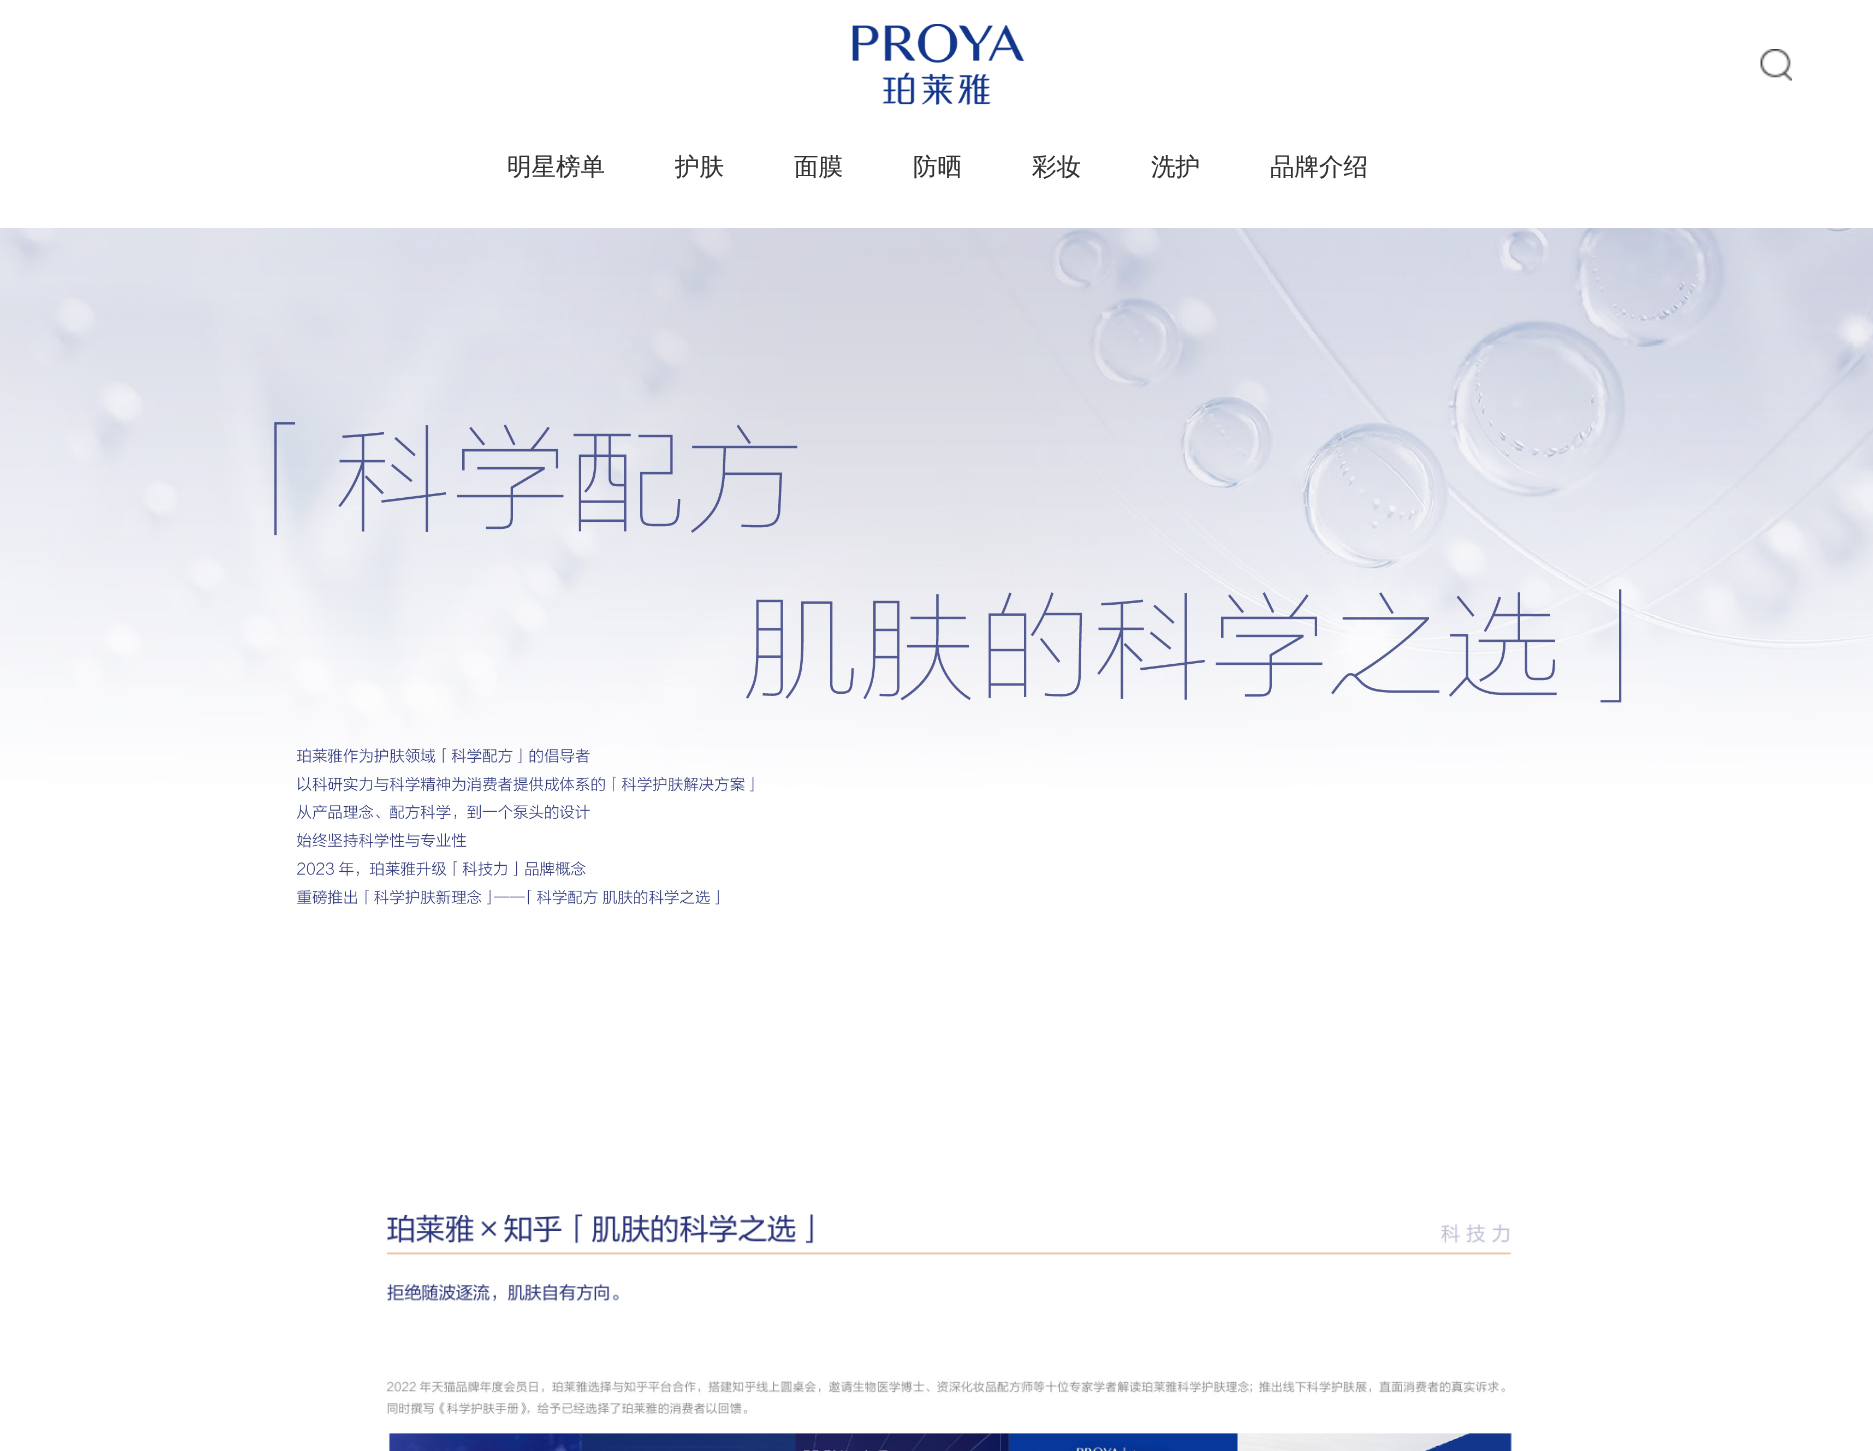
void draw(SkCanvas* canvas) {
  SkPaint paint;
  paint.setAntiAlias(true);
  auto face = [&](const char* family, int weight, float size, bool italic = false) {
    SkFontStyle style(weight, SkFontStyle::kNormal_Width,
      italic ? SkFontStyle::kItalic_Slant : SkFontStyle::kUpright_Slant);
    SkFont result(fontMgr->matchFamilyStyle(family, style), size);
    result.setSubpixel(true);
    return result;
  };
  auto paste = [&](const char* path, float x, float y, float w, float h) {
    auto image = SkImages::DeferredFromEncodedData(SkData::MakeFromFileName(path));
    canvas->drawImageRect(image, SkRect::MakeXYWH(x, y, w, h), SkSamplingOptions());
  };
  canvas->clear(0xffffffff);
  paste("img/1.png", 852, 24, 173, 81);
  paste("img/2.png", 1760, 49, 32, 32);
  paste("img/3.png", 0, 228, 1873, 677);
  paste("img/4.png", 387, 1214, 1125, 237);
  auto f0 = face("WenQuanYi Zen Hei", 500, 24.5f);
  paint.setColor(0xff333333);
  {
    const struct { const char* s; float x, y; } items[] = {
      {"明星榜单", 507, 175},
      {"护肤", 675, 175},
      {"面膜", 794, 175},
      {"防晒", 913, 175},
      {"彩妆", 1032, 175},
      {"洗护", 1151, 175},
      {"品牌介绍", 1270, 175},
    };
    for (auto [s, x, y] : items) {
      canvas->drawString(s, x, y, f0, paint);
    }
  }
}
